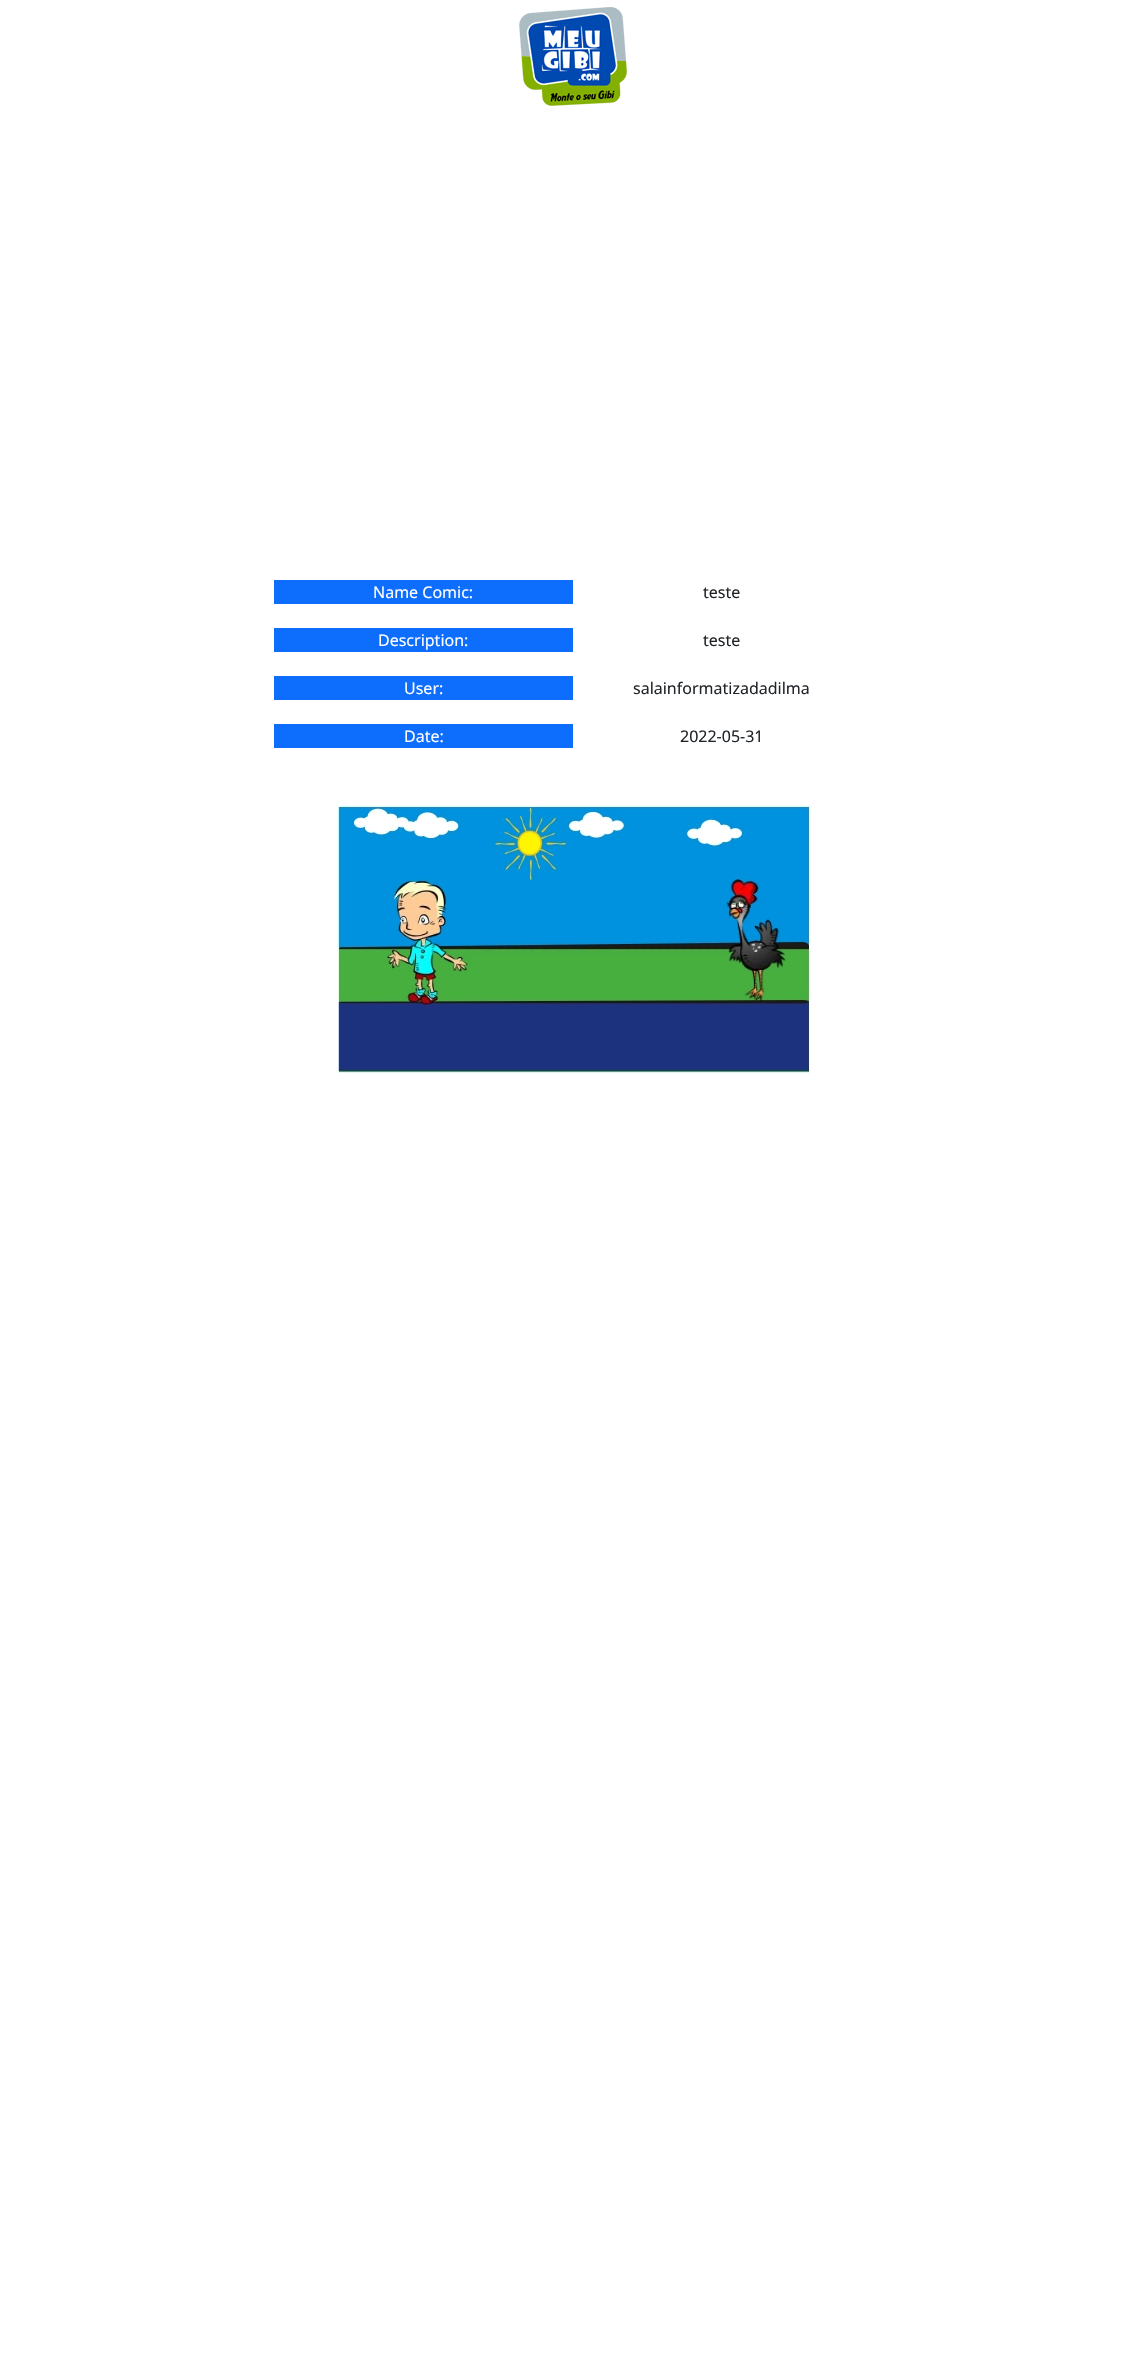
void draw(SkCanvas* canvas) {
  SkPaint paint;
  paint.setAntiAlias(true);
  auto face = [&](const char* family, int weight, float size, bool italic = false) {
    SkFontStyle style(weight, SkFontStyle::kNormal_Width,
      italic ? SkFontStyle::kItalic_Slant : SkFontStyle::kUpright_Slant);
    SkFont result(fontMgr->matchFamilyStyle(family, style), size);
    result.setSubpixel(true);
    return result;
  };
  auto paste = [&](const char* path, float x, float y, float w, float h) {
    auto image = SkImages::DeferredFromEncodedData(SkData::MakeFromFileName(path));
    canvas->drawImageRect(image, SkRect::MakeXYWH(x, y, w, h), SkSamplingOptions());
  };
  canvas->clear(0xffffffff);
  paste("img/1.png", 519, 7, 108, 99);
  {
    const struct { float x, y, w, h; SkColor color; } items[] = {
      {274, 580, 299, 24, 0xff0d6efd},
      {274, 628, 299, 24, 0xff0d6efd},
      {274, 676, 299, 24, 0xff0d6efd},
      {274, 724, 299, 24, 0xff0d6efd},
    };
    for (auto [x, y, w, h, color] : items) {
      paint.setColor(color);
      canvas->drawRect(SkRect::MakeXYWH(x, y, w, h), paint);
    }
  }
  paste("img/2.png", 337, 805, 474, 269);
  auto f0 = face("Noto Sans", 400, 16);
  paint.setColor(0xffffffff);
  canvas->drawString("Name Comic:", 373, 598, f0, paint);
  paint.setColor(0xff212529);
  canvas->drawString("teste", 703, 598, f0, paint);
  paint.setColor(0xffffffff);
  canvas->drawString("Description:", 378, 646, f0, paint);
  paint.setColor(0xff212529);
  canvas->drawString("teste", 703, 646, f0, paint);
  paint.setColor(0xffffffff);
  canvas->drawString("User:", 404, 694, f0, paint);
  paint.setColor(0xff212529);
  canvas->drawString("salainformatizadadilma", 633, 694, f0, paint);
  paint.setColor(0xffffffff);
  canvas->drawString("Date:", 404, 742, f0, paint);
  paint.setColor(0xff212529);
  canvas->drawString("2022-05-31", 680, 742, f0, paint);
}
